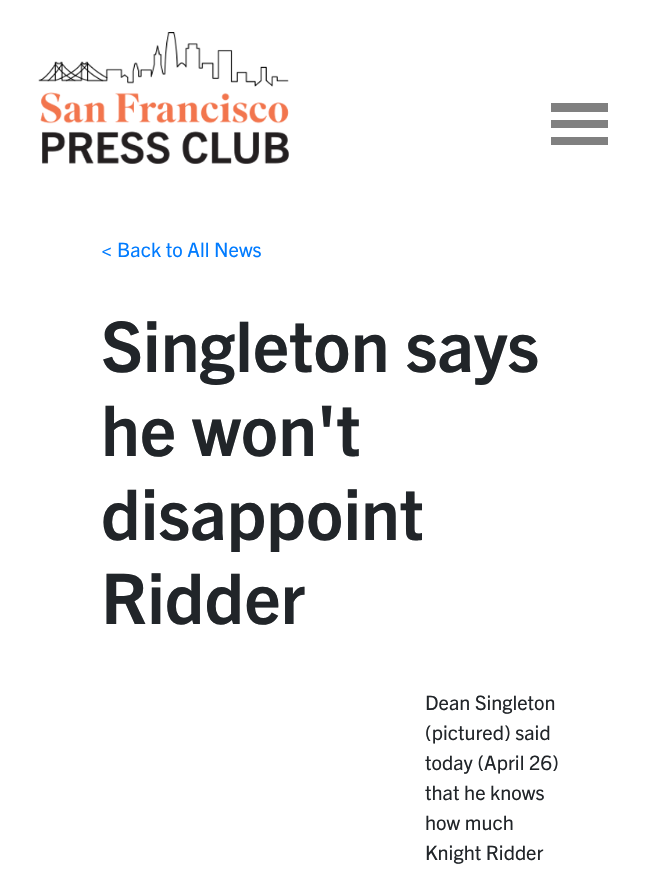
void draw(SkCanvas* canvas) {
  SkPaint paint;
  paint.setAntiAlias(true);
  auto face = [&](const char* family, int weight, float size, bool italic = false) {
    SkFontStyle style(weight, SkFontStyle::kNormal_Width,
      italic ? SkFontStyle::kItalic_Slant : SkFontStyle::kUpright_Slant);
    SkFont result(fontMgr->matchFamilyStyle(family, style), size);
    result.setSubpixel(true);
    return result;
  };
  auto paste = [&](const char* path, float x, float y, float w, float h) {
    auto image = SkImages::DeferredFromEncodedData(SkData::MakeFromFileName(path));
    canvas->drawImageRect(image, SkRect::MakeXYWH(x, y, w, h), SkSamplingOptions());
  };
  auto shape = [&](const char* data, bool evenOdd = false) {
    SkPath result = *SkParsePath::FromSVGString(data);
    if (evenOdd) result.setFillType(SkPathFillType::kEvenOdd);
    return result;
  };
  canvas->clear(0xffffffff);
  paste("img/1.png", 38, 32, 251, 132);
  paint.setColor(0xff808080);
  canvas->drawPath(shape("M608 112V103H551V112ZM608 128V120H551V128ZM608 145V137H551V145Z"), paint);
  auto f0 = face("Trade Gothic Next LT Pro", 400, 20);
  paint.setColor(0xff007bff);
  canvas->drawString("< Back to All News", 101, 257, f0, paint);
  auto f1 = face("Trade Gothic Next LT Pro", 700, 70);
  paint.setColor(0xff212529);
  {
    const struct { const char* s; float x, y; } items[] = {
      {"Singleton says", 101, 372},
      {"he won't", 101, 456},
      {"disappoint", 101, 540},
      {"Ridder", 101, 624},
    };
    for (auto [s, x, y] : items) {
      canvas->drawString(s, x, y, f1, paint);
    }
  }
  {
    const struct { const char* s; float x, y; } items[] = {
      {"Dean Singleton", 425, 710},
      {"(pictured) said", 425, 740},
      {"today (April 26)", 425, 770},
      {"that he knows", 425, 800},
      {"how much", 425, 830},
      {"Knight Ridder", 425, 860},
    };
    for (auto [s, x, y] : items) {
      canvas->drawString(s, x, y, f0, paint);
    }
  }
}
